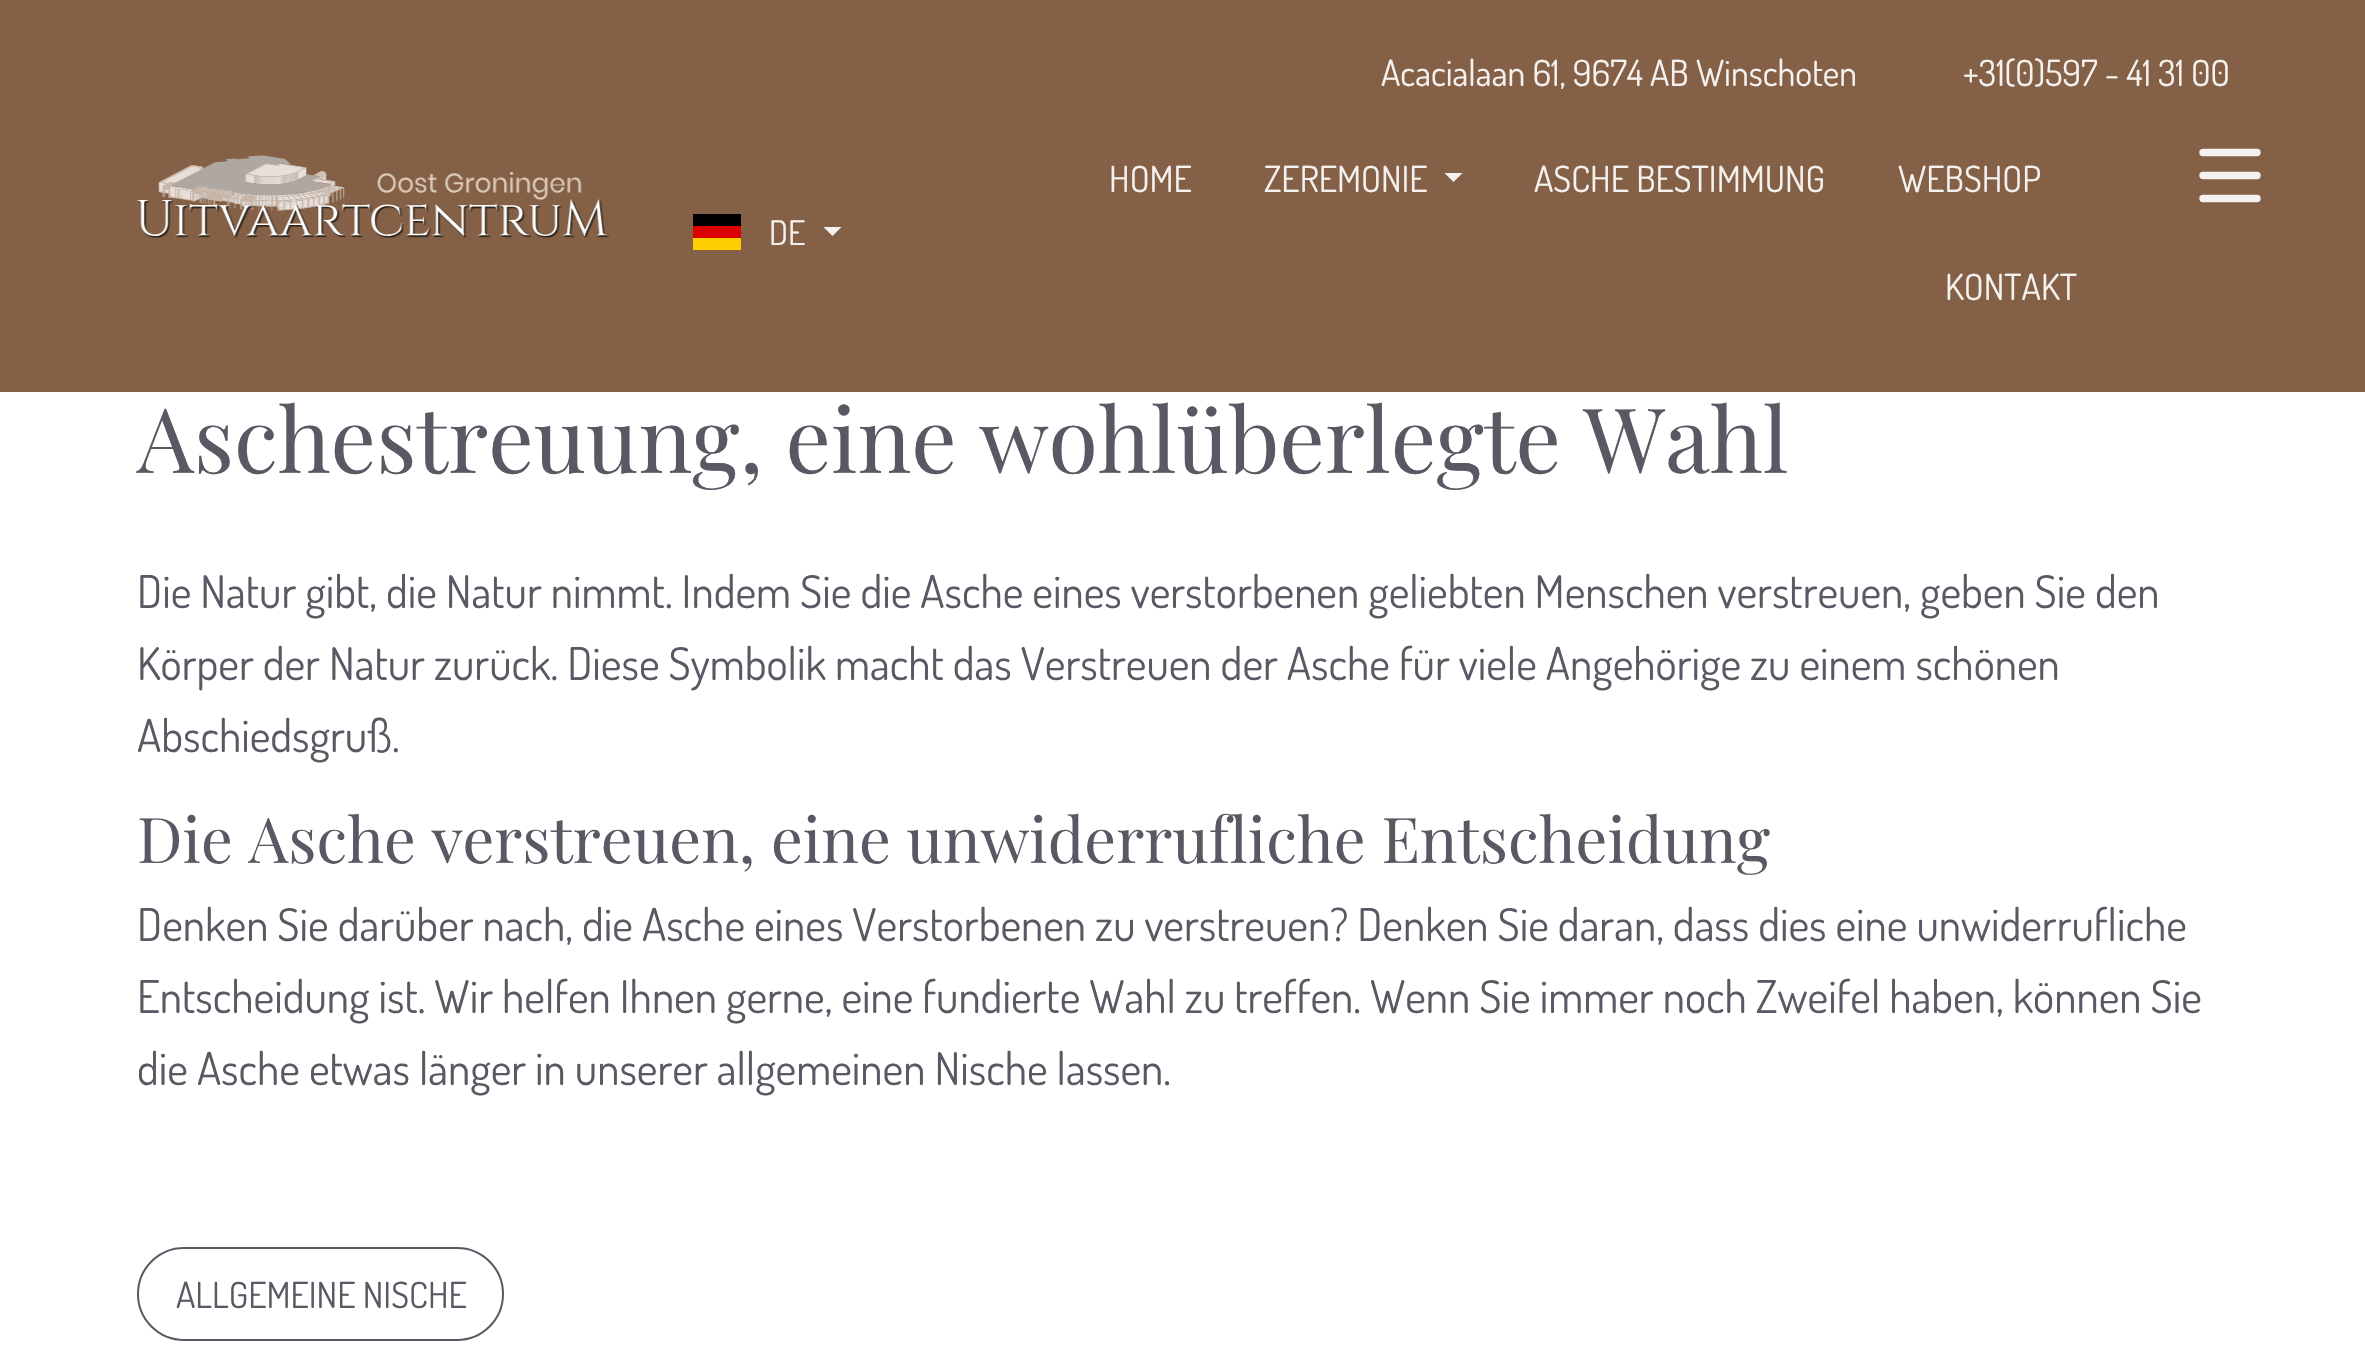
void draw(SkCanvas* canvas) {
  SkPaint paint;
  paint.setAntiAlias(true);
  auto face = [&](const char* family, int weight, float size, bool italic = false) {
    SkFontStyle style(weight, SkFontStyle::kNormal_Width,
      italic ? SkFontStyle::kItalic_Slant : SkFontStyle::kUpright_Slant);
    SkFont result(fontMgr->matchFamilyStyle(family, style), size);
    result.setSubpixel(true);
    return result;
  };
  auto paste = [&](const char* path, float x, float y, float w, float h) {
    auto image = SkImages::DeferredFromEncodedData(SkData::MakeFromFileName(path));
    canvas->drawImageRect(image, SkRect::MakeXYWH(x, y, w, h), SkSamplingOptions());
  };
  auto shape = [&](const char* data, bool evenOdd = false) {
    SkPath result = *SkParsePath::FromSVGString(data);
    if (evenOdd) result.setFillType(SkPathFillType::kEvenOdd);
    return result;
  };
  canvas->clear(0xffffffff);
  paint.setColor(0xff846146);
  canvas->drawRect(SkRect::MakeXYWH(0, 0, 2365, 392), paint);
  paste("img/1.png", 137, 155, 473, 83);
  {
    const struct { float x, y, w, h; SkColor color; } items[] = {
      {693, 238, 48, 12, 0xffffce00},
      {693, 214, 48, 12, 0xff000000},
      {693, 226, 48, 12, 0xffdd0000},
    };
    for (auto [x, y, w, h, color] : items) {
      paint.setColor(color);
      canvas->drawRect(SkRect::MakeXYWH(x, y, w, h), paint);
    }
  }
  paint.setColor(0xfff5f1ef);
  canvas->drawPath(shape("M823.5 227H841.5L832.5 236Z"), paint);
  canvas->drawPath(shape("M1444.5 173H1462.5L1453.5 182Z"), paint);
  paint.setStroke(true);
  paint.setStrokeWidth(7.4f);
  paint.setStrokeCap(SkPaint::kRound_Cap);
  canvas->drawPath(shape("M2203 152.5H2257M2203 175.5H2257M2203 198.5H2257"), paint);
  paint.setStrokeWidth(2);
  paint.setStrokeCap(SkPaint::kButt_Cap);
  paint.setColor(0xff595964);
  canvas->drawRoundRect(SkRect::MakeXYWH(138, 1248, 365, 92), 46, 46, paint);
  auto f0 = face("Dosis", 400, 36);
  paint.setStroke(false);
  paint.setColor(0xfff5f1ef);
  canvas->drawString("Acacialaan 61, 9674 AB Winschoten", 1381, 86, f0, paint);
  canvas->drawString("+31(0)597 - 41 31 00", 1963, 86, f0, paint);
  auto f1 = face("Dosis", 400, 34);
  canvas->drawString("DE", 769, 245, f1, paint);
  {
    const struct { const char* s; float x, y; } items[] = {
      {"HOME", 1109, 192},
      {"ZEREMONIE", 1264, 192},
      {"ASCHE BESTIMMUNG", 1534, 192},
      {"WEBSHOP", 1898, 192},
      {"KONTAKT", 1945, 300},
    };
    for (auto [s, x, y] : items) {
      canvas->drawString(s, x, y, f0, paint);
    }
  }
  auto f2 = face("Playfair Display", 400, 90);
  paint.setColor(0xff595964);
  canvas->drawString("Aschestreuung, eine wohlüberlegte Wahl", 137, 473, f2, paint);
  auto f3 = face("Dosis", 400, 45);
  {
    const struct { const char* s; float x, y; } items[] = {
      {"Die Natur gibt, die Natur nimmt. Indem Sie die Asche eines verstorbenen geliebten Menschen verstreuen, geben Sie den", 137, 608},
      {"Körper der Natur zurück. Diese Symbolik macht das Verstreuen der Asche für viele Angehörige zu einem schönen", 137, 680},
      {"Abschiedsgruß.", 137, 752},
    };
    for (auto [s, x, y] : items) {
      canvas->drawString(s, x, y, f3, paint);
    }
  }
  auto f4 = face("Playfair Display", 400, 63);
  canvas->drawString("Die Asche verstreuen, eine unwiderrufliche Entscheidung", 137, 863, f4, paint);
  {
    const struct { const char* s; float x, y; } items[] = {
      {"Denken Sie darüber nach, die Asche eines Verstorbenen zu verstreuen? Denken Sie daran, dass dies eine unwiderrufliche", 137, 941},
      {"Entscheidung ist. Wir helfen Ihnen gerne, eine fundierte Wahl zu treffen. Wenn Sie immer noch Zweifel haben, können Sie", 137, 1013},
      {"die Asche etwas länger in unserer allgemeinen Nische lassen.", 137, 1085},
    };
    for (auto [s, x, y] : items) {
      canvas->drawString(s, x, y, f3, paint);
    }
  }
  canvas->drawString("ALLGEMEINE NISCHE", 176, 1308, f0, paint);
}
